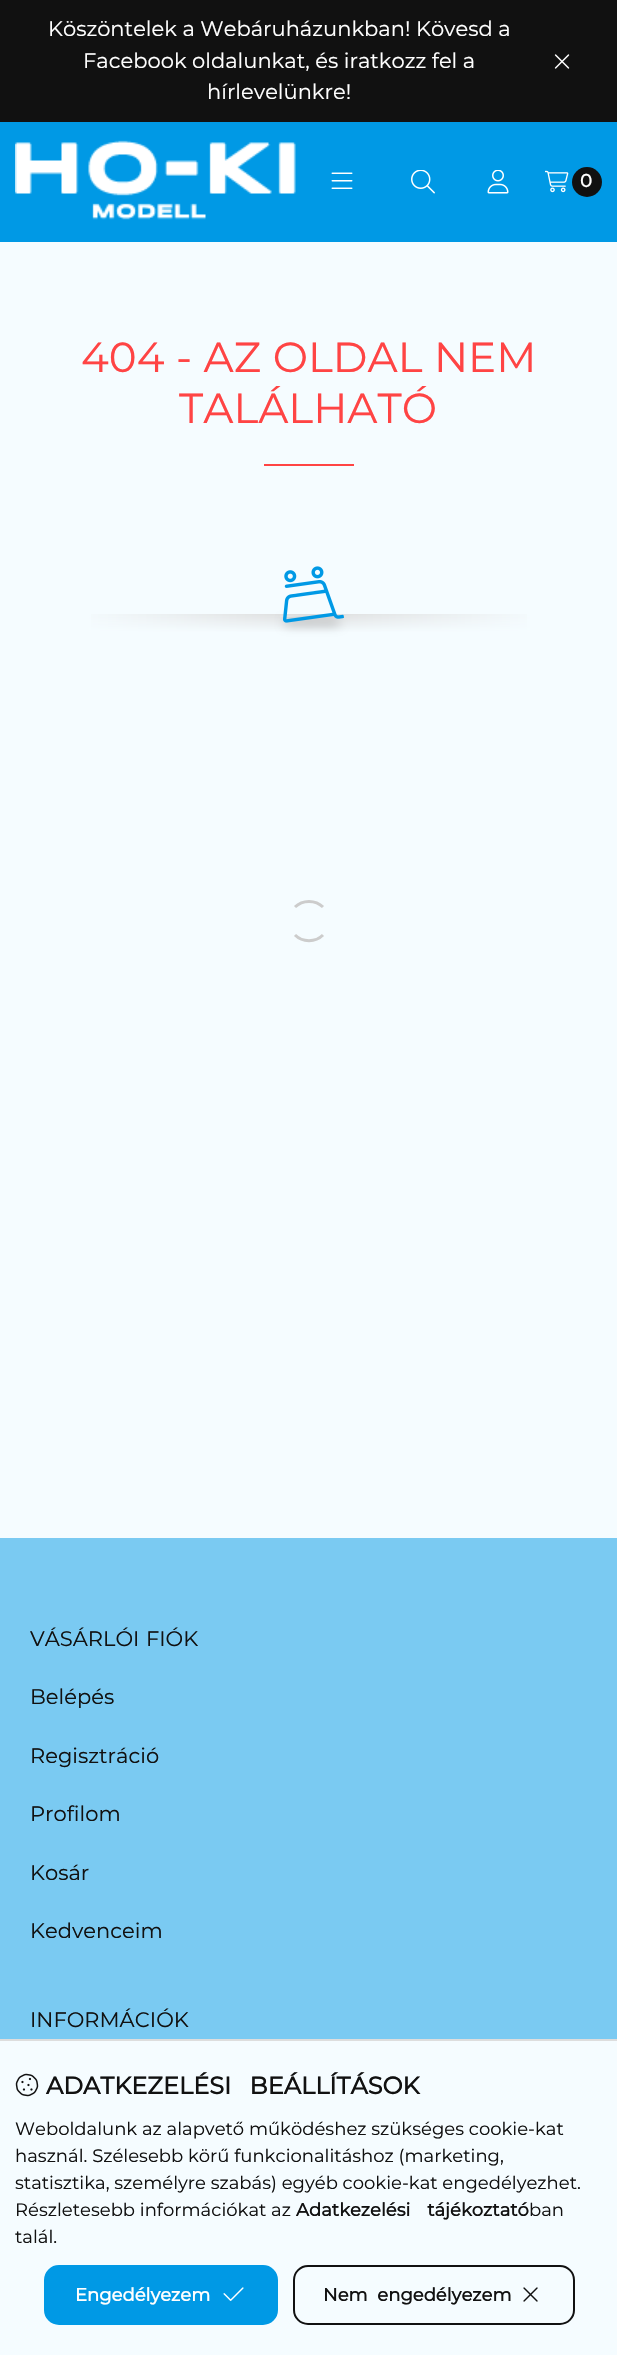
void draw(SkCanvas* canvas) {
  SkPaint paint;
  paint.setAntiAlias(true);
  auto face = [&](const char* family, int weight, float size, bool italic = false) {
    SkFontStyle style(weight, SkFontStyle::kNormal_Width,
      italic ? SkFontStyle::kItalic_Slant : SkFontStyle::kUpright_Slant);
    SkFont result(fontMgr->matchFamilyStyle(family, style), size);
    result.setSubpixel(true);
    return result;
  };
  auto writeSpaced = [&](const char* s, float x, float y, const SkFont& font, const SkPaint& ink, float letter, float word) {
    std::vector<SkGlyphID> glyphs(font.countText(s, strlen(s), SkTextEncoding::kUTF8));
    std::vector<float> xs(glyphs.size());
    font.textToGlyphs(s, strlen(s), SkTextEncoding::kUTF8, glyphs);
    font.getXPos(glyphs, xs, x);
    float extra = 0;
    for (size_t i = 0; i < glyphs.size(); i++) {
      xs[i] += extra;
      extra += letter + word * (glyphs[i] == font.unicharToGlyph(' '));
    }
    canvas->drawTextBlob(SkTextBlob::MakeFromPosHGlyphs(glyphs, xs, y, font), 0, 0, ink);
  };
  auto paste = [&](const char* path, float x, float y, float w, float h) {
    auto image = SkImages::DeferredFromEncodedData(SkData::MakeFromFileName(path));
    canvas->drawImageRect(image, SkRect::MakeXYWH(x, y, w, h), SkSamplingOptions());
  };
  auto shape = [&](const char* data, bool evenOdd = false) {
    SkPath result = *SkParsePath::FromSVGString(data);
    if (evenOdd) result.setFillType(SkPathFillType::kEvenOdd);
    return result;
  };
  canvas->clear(0xfff5fcff);
  paint.setColor(0xff111111);
  canvas->drawRect(SkRect::MakeXYWH(0, 0, 617, 122), paint);
  paste("img/1.png", 554, 54, 16, 15);
  paint.setColor(0xff0099e5);
  canvas->drawRect(SkRect::MakeXYWH(0, 122, 617, 120), paint);
  paste("img/2.png", 15, 140, 281, 80);
  paste("img/3.png", 331, 172, 22, 17);
  paste("img/4.png", 411, 170, 24, 24);
  paste("img/5.png", 487, 170, 22, 24);
  paste("img/6.png", 545, 170, 24, 23);
  paint.setColor(0xff111111);
  canvas->drawCircle(587, 182, 15, paint);
  paint.setColor(0xffff4444);
  canvas->drawRect(SkRect::MakeXYWH(264, 464, 90, 2), paint);
  {
    const SkColor colors[] = {0xfff5fcff, 0xffdddddd, 0xfff5fcff};
    const float stops[] = {0.1f, 0.5f, 0.9f};
    const SkPoint ends[] = {{15, 623}, {603, 623}};
    paint.setShader(SkGradientShader::MakeLinear(ends, colors, stops, 3, SkTileMode::kClamp));
    paint.setAlpha(255);
  }
  canvas->drawRect(SkRect::MakeXYWH(91, 614, 436, 19), paint);
  {
    const SkColor colors[] = {0xfff5fcff, 0x00f5fcff};
    const float stops[] = {0, 1};
    const SkPoint ends[] = {{309, 633}, {309, 614}};
    paint.setShader(SkGradientShader::MakeLinear(ends, colors, stops, 2, SkTileMode::kClamp));
    paint.setAlpha(255);
  }
  canvas->drawRect(SkRect::MakeXYWH(89, 615, 441, 18), paint);
  canvas->save();
  canvas->clipPath(shape("M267 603H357V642H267ZM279 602.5L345 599L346 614L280 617.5Z", true), true);
  paint.setShader(nullptr);
  paint.setColor(0xff808080);
  paint.setMaskFilter(SkMaskFilter::MakeBlur(kNormal_SkBlurStyle, 5.5f));
  canvas->drawRect(SkRect::MakeXYWH(285, 621, 54, 3), paint);
  paint.setMaskFilter(nullptr);
  canvas->restore();
  paste("img/7.png", 283, 566, 61, 57);
  paint.setStroke(true);
  paint.setStrokeWidth(3);
  paint.setColor(0xffcccccc);
  canvas->drawPath(shape("M295 907C302.5 899.5 315.5 899.5 323 907M323 935C315.5 942.5 302.5 942.5 295 935"), paint);
  paint.setStroke(false);
  paint.setColor(0xff7acaf2);
  canvas->drawRect(SkRect::MakeXYWH(0, 1538, 617, 501), paint);
  paint.setColor(0xffdddddd);
  canvas->drawRect(SkRect::MakeXYWH(0, 2039, 617, 2), paint);
  paste("img/8.png", 15, 2073, 24, 24);
  paint.setColor(0xff0099e5);
  canvas->drawRoundRect(SkRect::MakeXYWH(45, 2266, 232, 58), 14, 14, paint);
  paint.setStroke(true);
  paint.setStrokeWidth(2);
  canvas->drawRoundRect(SkRect::MakeXYWH(45, 2266, 232, 58), 14, 14, paint);
  paste("img/9.png", 223, 2287, 21, 14);
  paint.setColor(0xff111111);
  canvas->drawRoundRect(SkRect::MakeXYWH(294, 2266, 280, 58), 14, 14, paint);
  paste("img/10.png", 523, 2287, 15, 15);
  auto f0 = face("Montserrat", 400, 21);
  paint.setStroke(false);
  paint.setColor(0xffffffff);
  {
    const struct { const char* s; float x, y; } items[] = {
      {"Köszöntelek a Webáruházunkban! Kövesd a", 48, 36},
      {"Facebook oldalunkat, és iratkozz fel a", 83, 68},
      {"hírlevelünkre!", 207, 99},
    };
    for (auto [s, x, y] : items) {
      canvas->drawString(s, x, y, f0, paint);
    }
  }
  auto f1 = face("Montserrat", 700, 18);
  canvas->drawString("0", 580, 187, f1, paint);
  auto f2 = face("Montserrat", 400, 42);
  paint.setColor(0xffff4444);
  writeSpaced("404 - AZ OLDAL NEM", 81, 372, f2, paint, 0, 0.5f);
  canvas->drawString("TALÁLHATÓ", 179, 423, f2, paint);
  paint.setColor(0xff111111);
  writeSpaced("VÁSÁRLÓI FIÓK", 30, 1646, f0, paint, 0, 1);
  {
    const struct { const char* s; float x, y; } items[] = {
      {"Belépés", 30, 1704},
      {"Regisztráció", 30, 1763},
      {"Profilom", 30, 1821},
      {"Kosár", 30, 1880},
      {"Kedvenceim", 30, 1938},
      {"INFORMÁCIÓK", 30, 2027},
    };
    for (auto [s, x, y] : items) {
      canvas->drawString(s, x, y, f0, paint);
    }
  }
  auto f3 = face("Montserrat", 700, 24);
  writeSpaced("ADATKEZELÉSI BEÁLLÍTÁSOK", 46, 2094, f3, paint, 0, 12);
  auto f4 = face("Montserrat", 400, 18);
  {
    const struct { const char* s; float x, y; } items[] = {
      {"Weboldalunk az alapvető működéshez szükséges cookie-kat", 15, 2135},
      {"használ. Szélesebb körű funkcionalitáshoz (marketing,", 15, 2162},
      {"statisztika, személyre szabás) egyéb cookie-kat engedélyezhet.", 15, 2189},
      {"Részletesebb információkat az", 15, 2216},
    };
    for (auto [s, x, y] : items) {
      canvas->drawString(s, x, y, f4, paint);
    }
  }
  writeSpaced("Adatkezelési tájékoztató", 296, 2216, f1, paint, 0, 12);
  canvas->drawString("ban", 529, 2216, f4, paint);
  canvas->drawString("talál.", 15, 2243, f4, paint);
  paint.setColor(0xffffffff);
  canvas->drawString("Engedélyezem", 75, 2301, f1, paint);
  paint.setColor(0xff111111);
  writeSpaced("Nem engedélyezem", 323, 2301, f1, paint, 0, 5);
}
